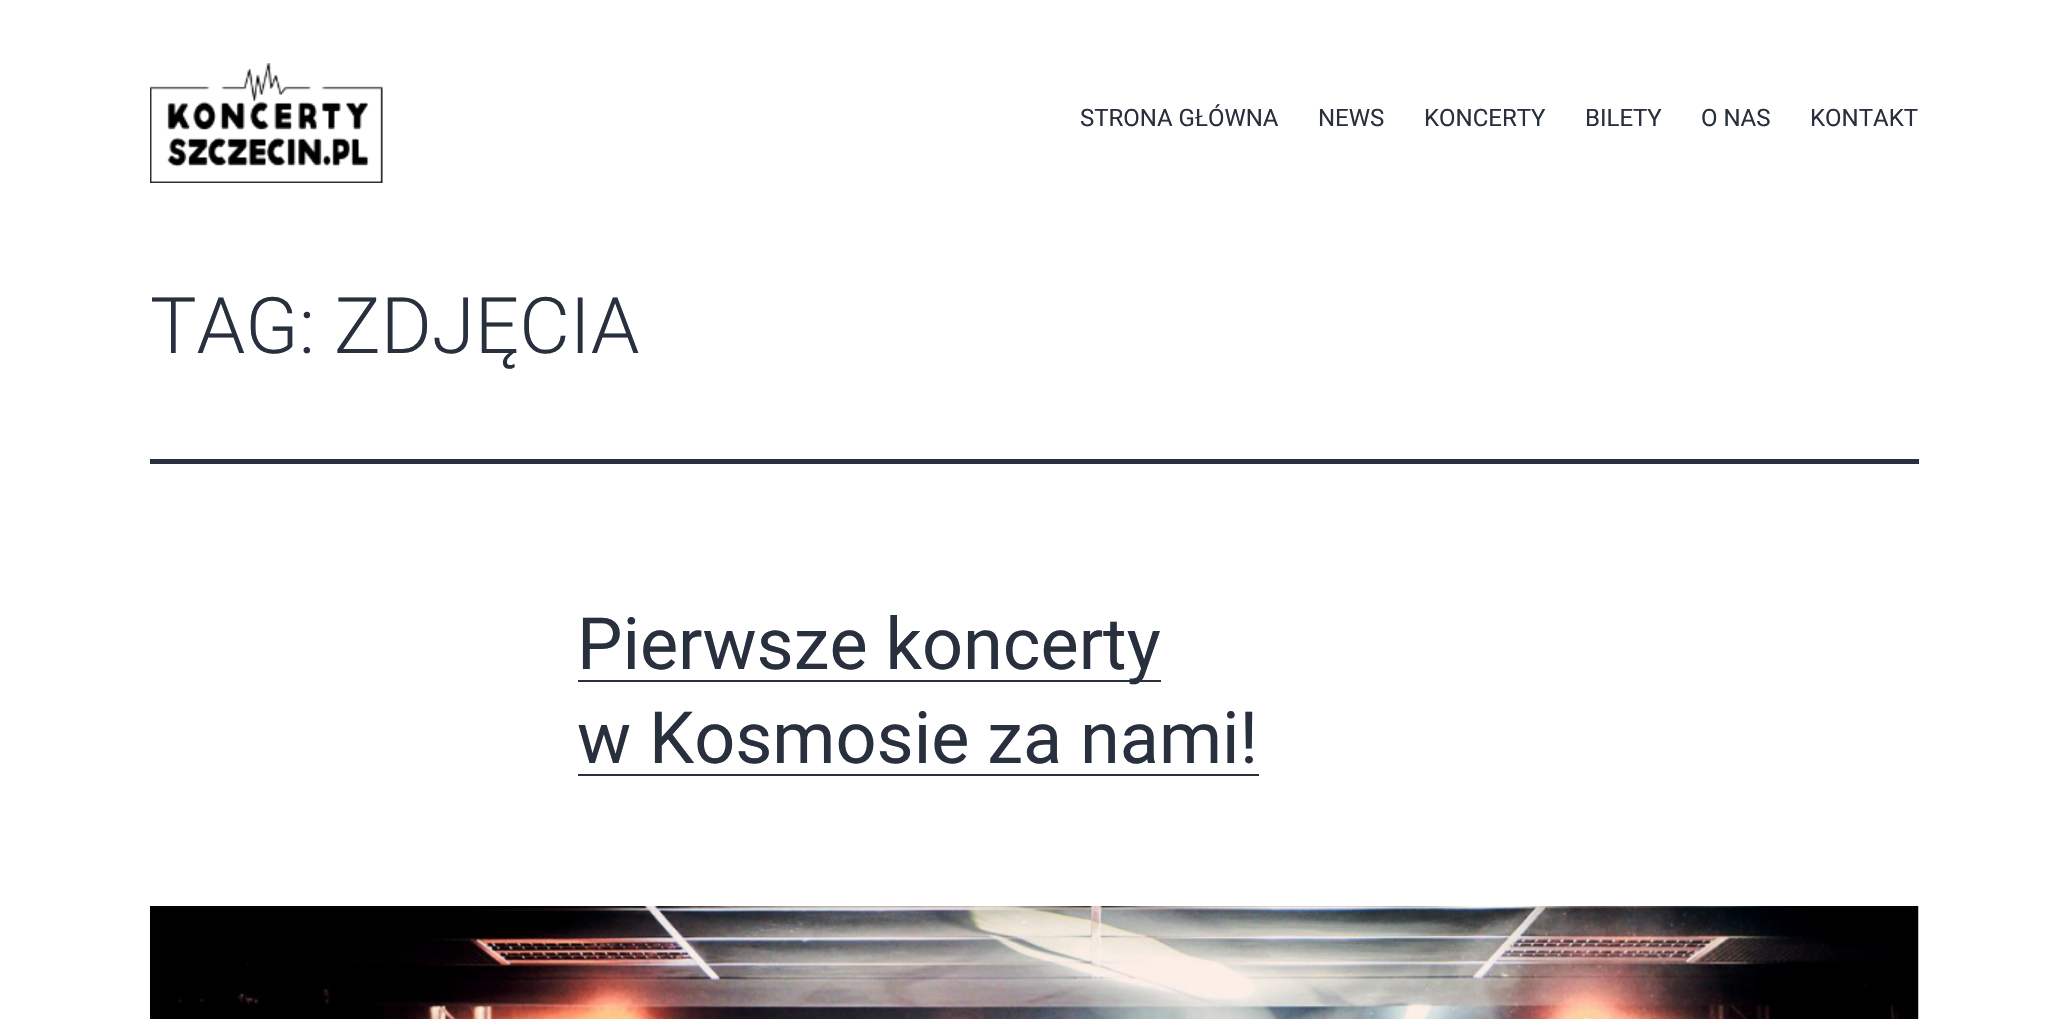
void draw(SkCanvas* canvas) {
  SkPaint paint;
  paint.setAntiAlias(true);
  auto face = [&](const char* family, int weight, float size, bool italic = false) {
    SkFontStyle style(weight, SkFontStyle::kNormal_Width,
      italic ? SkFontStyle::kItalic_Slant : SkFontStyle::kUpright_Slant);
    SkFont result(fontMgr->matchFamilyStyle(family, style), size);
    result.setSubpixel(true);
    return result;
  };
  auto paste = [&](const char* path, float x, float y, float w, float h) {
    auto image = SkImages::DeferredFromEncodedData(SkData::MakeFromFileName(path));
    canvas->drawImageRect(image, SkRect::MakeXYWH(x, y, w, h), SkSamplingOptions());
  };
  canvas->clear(0xffffffff);
  paste("img/1.png", 150, 63, 233, 120);
  {
    const struct { float x, y, w, h; SkColor color; } items[] = {
      {150, 459, 1769, 5, 0xff28303d},
      {578, 680, 583, 2, 0xff28303d},
      {578, 774, 681, 2, 0xff28303d},
    };
    for (auto [x, y, w, h, color] : items) {
      paint.setColor(color);
      canvas->drawRect(SkRect::MakeXYWH(x, y, w, h), paint);
    }
  }
  paste("img/2.png", 150, 906, 1769, 113);
  auto f0 = face("Roboto", 400, 24);
  {
    const struct { const char* s; float x, y; } items[] = {
      {"STRONA GŁÓWNA", 1080, 126},
      {"NEWS", 1318, 126},
      {"KONCERTY", 1424, 126},
      {"BILETY", 1585, 126},
      {"O NAS", 1701, 126},
      {"KONTAKT", 1810, 126},
    };
    for (auto [s, x, y] : items) {
      canvas->drawString(s, x, y, f0, paint);
    }
  }
  auto f1 = face("Roboto", 300, 78);
  canvas->drawString("TAG: ZDJĘCIA", 150, 353, f1, paint);
  auto f2 = face("Roboto", 400, 72);
  canvas->drawString("Pierwsze koncerty", 577, 669, f2, paint);
  canvas->drawString("w Kosmosie za nami!", 577, 763, f2, paint);
}
